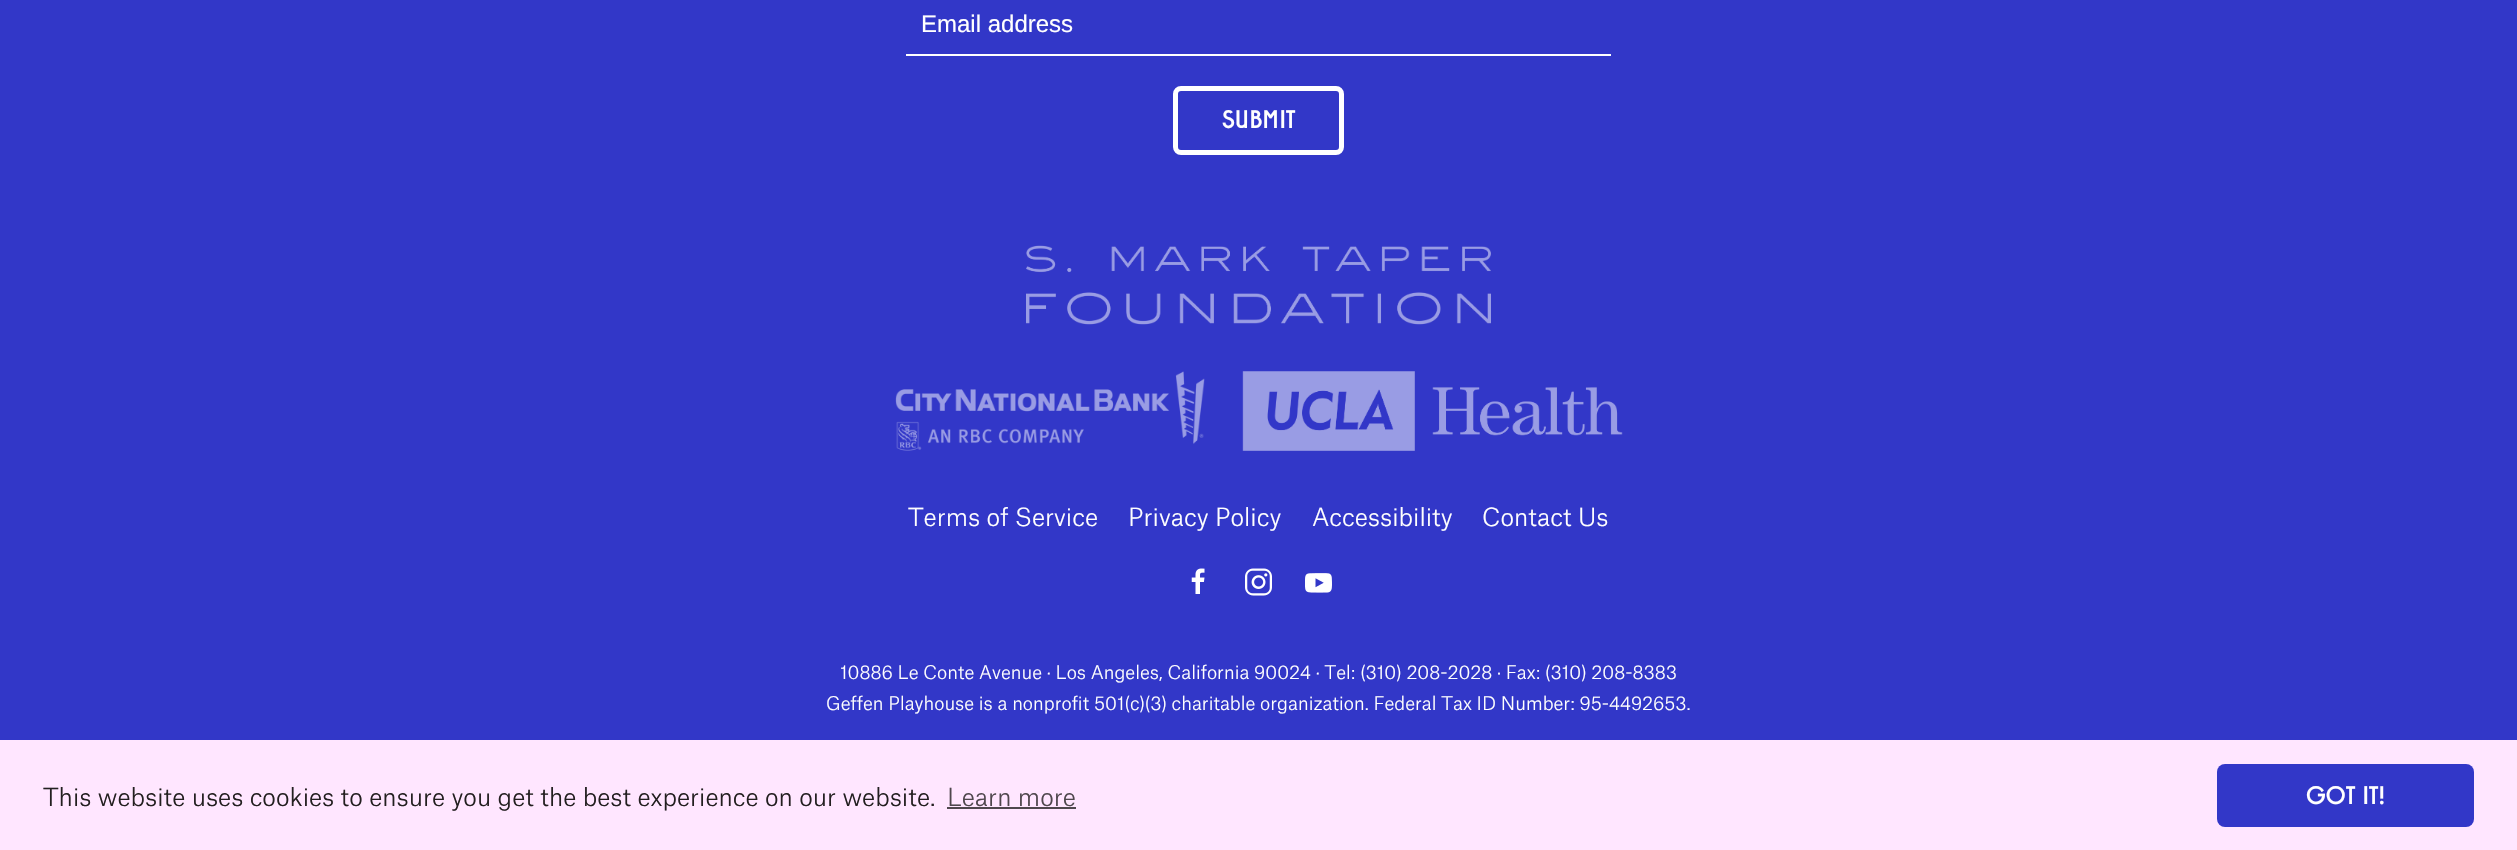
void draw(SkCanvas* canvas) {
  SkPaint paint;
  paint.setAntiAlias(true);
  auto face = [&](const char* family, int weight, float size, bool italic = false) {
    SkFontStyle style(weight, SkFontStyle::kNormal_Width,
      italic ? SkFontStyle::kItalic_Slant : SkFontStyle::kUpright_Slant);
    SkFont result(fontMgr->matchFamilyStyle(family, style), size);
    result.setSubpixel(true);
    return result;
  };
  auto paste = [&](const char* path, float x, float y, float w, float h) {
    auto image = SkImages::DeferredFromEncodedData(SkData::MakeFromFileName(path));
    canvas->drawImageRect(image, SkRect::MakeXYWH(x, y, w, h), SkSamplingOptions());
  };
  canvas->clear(0xff3237c8);
  paint.setColor(0xffffffff);
  canvas->drawRect(SkRect::MakeXYWH(906, 54, 705, 2), paint);
  paint.setStroke(true);
  paint.setStrokeWidth(5);
  canvas->drawRoundRect(SkRect::MakeXYWH(1175.5f, 88.5f, 166, 64), 5.5f, 5.5f, paint);
  paste("img/1.png", 1026, 245, 465, 80);
  paste("img/2.png", 895, 371, 310, 80);
  paste("img/3.png", 1242, 371, 381, 80);
  paste("img/4.png", 1191, 568, 14, 26);
  paste("img/5.png", 1245, 568, 27, 28);
  paste("img/6.png", 1305, 573, 27, 20);
  paint.setStroke(false);
  paint.setColor(0xffffe6ff);
  canvas->drawRect(SkRect::MakeXYWH(0, 740, 2517, 110), paint);
  paint.setColor(0xff4f474d);
  canvas->drawRect(SkRect::MakeXYWH(947, 807, 129, 2), paint);
  paint.setColor(0xff3237c8);
  canvas->drawRoundRect(SkRect::MakeXYWH(2217, 764, 257, 63), 8, 8, paint);
  auto f0 = face("Liberation Sans", 400, 24);
  paint.setColor(0xffffffff);
  canvas->drawString("Email address", 921, 32, f0, paint);
  auto f1 = face("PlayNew", 600, 25.5f);
  canvas->drawString("SUBMIT", 1222, 128, f1, paint);
  auto f2 = face("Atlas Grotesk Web", 300, 24);
  {
    const struct { const char* s; float x, y; } items[] = {
      {"Terms of Service", 908, 526},
      {"Privacy Policy", 1128, 526},
      {"Accessibility", 1312, 526},
      {"Contact Us", 1482, 526},
    };
    for (auto [s, x, y] : items) {
      canvas->drawString(s, x, y, f2, paint);
    }
  }
  auto f3 = face("Atlas Grotesk Web", 300, 18);
  canvas->drawString("10886 Le Conte Avenue · Los Angeles, California 90024 · Tel: (310) 208-2028 · Fax: (310) 208-8383", 840, 679, f3, paint);
  canvas->drawString("Geffen Playhouse is a nonprofit 501(c)(3) charitable organization. Federal Tax ID Number: 95-4492653.", 826, 710, f3, paint);
  paint.setColor(0xff231f20);
  canvas->drawString("This website uses cookies to ensure you get the best experience on our website.", 43, 806, f2, paint);
  paint.setColor(0xff4f474d);
  canvas->drawString("Learn more", 947, 806, f2, paint);
  paint.setColor(0xffffffff);
  canvas->drawString("GOT IT!", 2306, 804, f1, paint);
}
